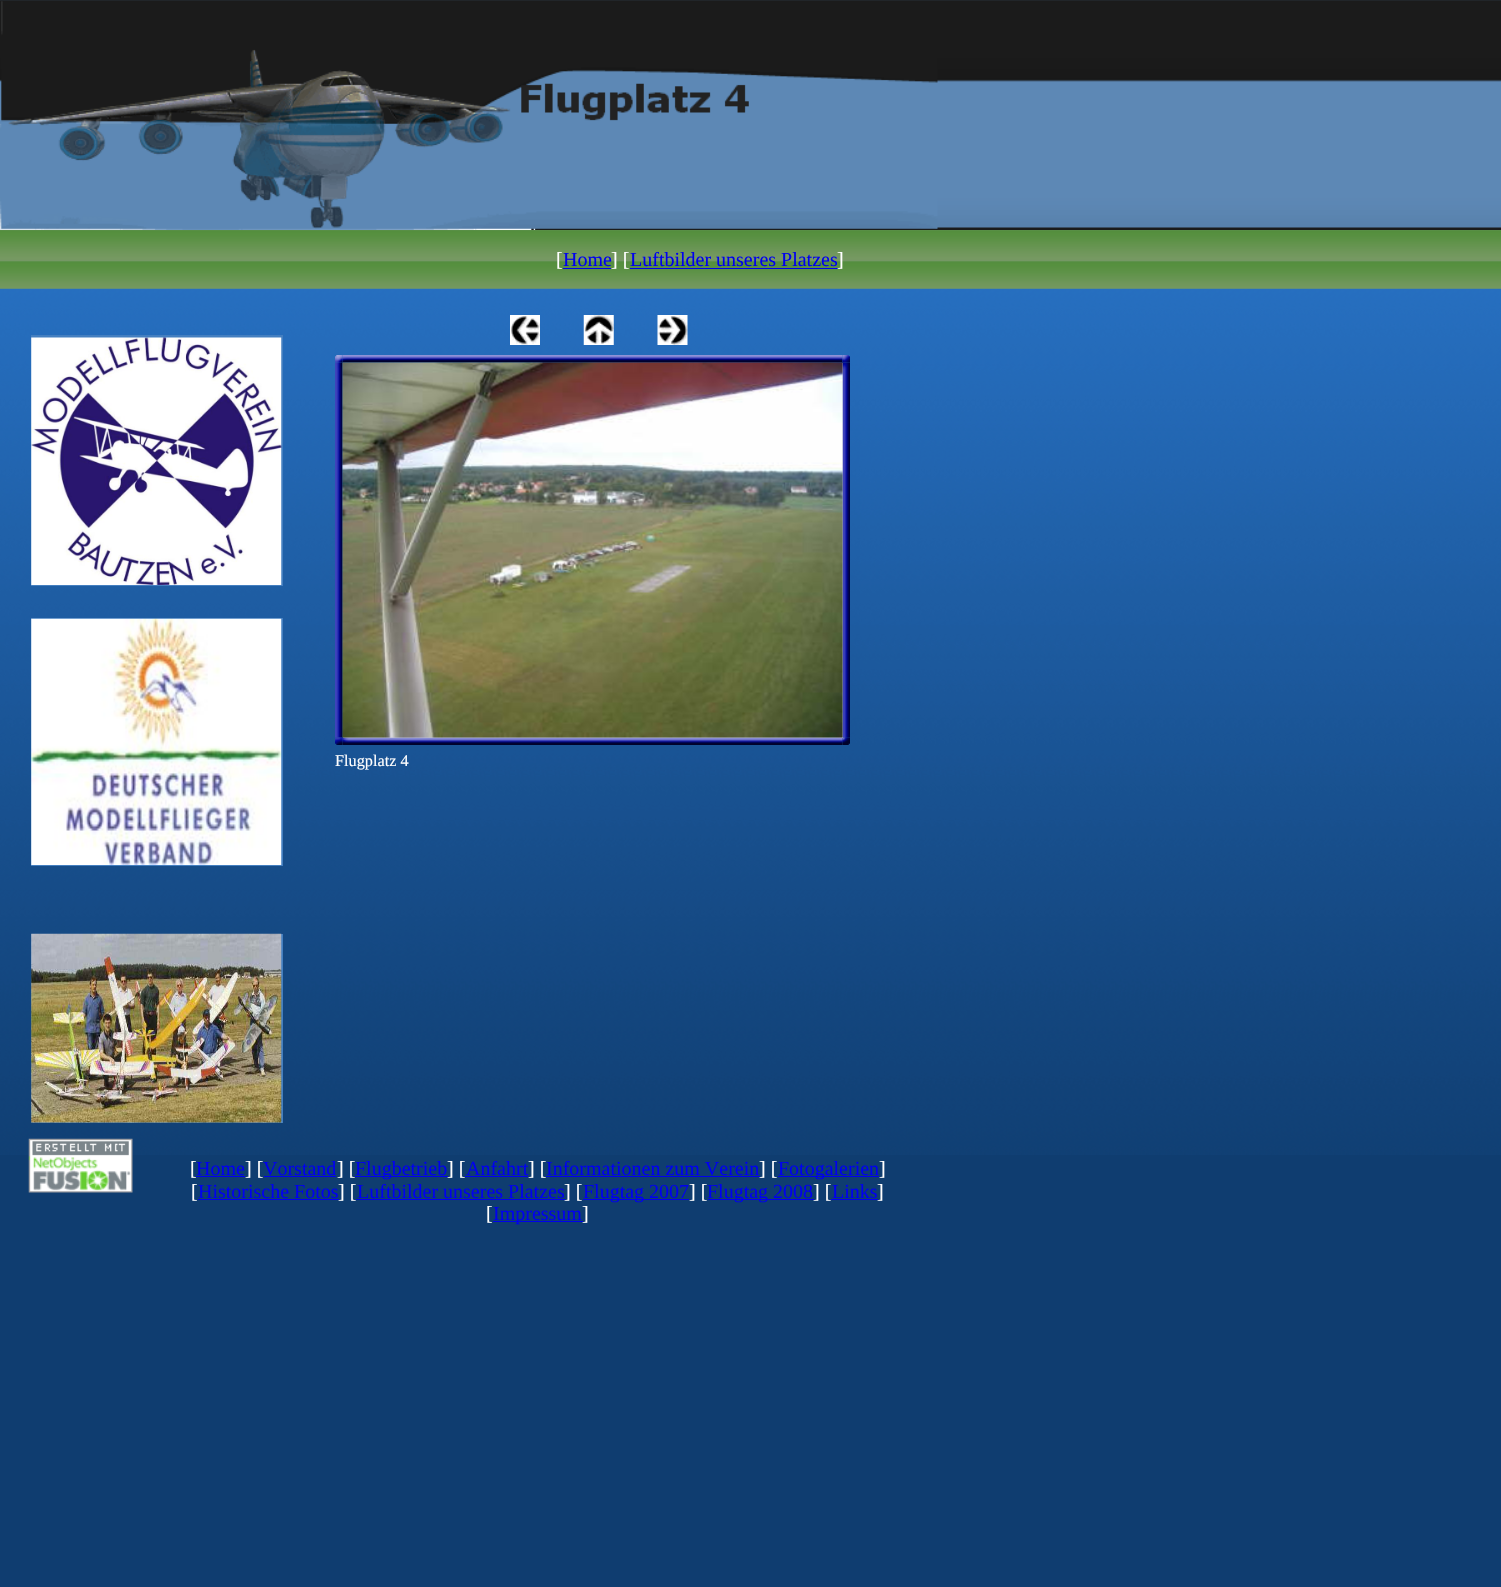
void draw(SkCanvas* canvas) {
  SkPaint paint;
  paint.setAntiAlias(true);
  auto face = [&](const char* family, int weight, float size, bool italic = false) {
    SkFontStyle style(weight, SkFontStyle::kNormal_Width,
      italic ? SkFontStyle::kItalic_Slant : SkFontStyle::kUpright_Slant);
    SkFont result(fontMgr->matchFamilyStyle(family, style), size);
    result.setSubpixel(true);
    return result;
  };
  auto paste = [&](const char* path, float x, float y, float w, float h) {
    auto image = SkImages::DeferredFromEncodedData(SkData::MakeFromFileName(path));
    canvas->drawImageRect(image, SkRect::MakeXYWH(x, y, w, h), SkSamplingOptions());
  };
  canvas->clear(0xff0f3d70);
  paste("img/1.png", 0, 288, 1501, 867);
  paste("img/2.png", 0, 0, 1501, 230);
  paste("img/3.png", 0, 1, 938, 229);
  paste("img/4.png", 0, 230, 1501, 59);
  {
    const struct { float x, y, w, h; SkColor color; } items[] = {
      {563, 268, 48, 1, 0xff0000ee},
      {630, 268, 208, 1, 0xff0000ee},
      {31, 335, 252, 251, 0xff447fc0},
    };
    for (auto [x, y, w, h, color] : items) {
      paint.setColor(color);
      canvas->drawRect(SkRect::MakeXYWH(x, y, w, h), paint);
    }
  }
  paste("img/5.png", 31, 337, 251, 248);
  canvas->drawRect(SkRect::MakeXYWH(31, 618, 252, 248), paint);
  paste("img/6.png", 31, 618, 251, 247);
  canvas->drawRect(SkRect::MakeXYWH(31, 934, 252, 189), paint);
  paste("img/7.png", 31, 933, 251, 190);
  paste("img/8.png", 510, 315, 30, 30);
  paste("img/9.png", 583, 315, 31, 30);
  paste("img/10.png", 657, 315, 31, 30);
  paste("img/12.png", 342, 355, 501, 8);
  paste("img/14.png", 335, 362, 8, 376);
  paste("img/11.png", 335, 355, 8, 8);
  paint.setColor(0xffdedede);
  canvas->drawRect(SkRect::MakeXYWH(343, 363, 500, 375), paint);
  paste("img/16.png", 842, 362, 8, 376);
  paste("img/13.png", 842, 355, 8, 8);
  paste("img/18.png", 342, 737, 501, 8);
  paste("img/15.png", 342, 362, 501, 376);
  paste("img/17.png", 335, 737, 8, 8);
  paste("img/19.png", 842, 737, 8, 8);
  paste("img/20.png", 28, 1138, 105, 55);
  {
    const struct { float x, y, w, h; SkColor color; } items[] = {
      {196, 1176, 49, 1, 0xff0000ee},
      {264, 1176, 72, 1, 0xff0000ee},
      {355, 1176, 93, 1, 0xff0000ee},
      {465, 1176, 63, 1, 0xff0000ee},
      {546, 1176, 214, 1, 0xff0000ee},
      {778, 1176, 101, 1, 0xff0000ee},
      {198, 1199, 141, 1, 0xff0000ee},
      {356, 1199, 209, 1, 0xff0000ee},
      {583, 1199, 106, 1, 0xff0000ee},
      {708, 1199, 106, 1, 0xff0000ee},
      {831, 1199, 47, 1, 0xff0000ee},
      {493, 1221, 90, 1, 0xff0000ee},
    };
    for (auto [x, y, w, h, color] : items) {
      paint.setColor(color);
      canvas->drawRect(SkRect::MakeXYWH(x, y, w, h), paint);
    }
  }
  auto f0 = face("Liberation Serif", 400, 20);
  paint.setColor(0xffffffff);
  canvas->drawString("[", 556, 266, f0, paint);
  paint.setColor(0xff0000ee);
  canvas->drawString("Home", 563, 266, f0, paint);
  paint.setColor(0xffffffff);
  canvas->drawString("] [", 611, 266, f0, paint);
  paint.setColor(0xff0000ee);
  canvas->drawString("Luftbilder unseres Platzes", 630, 266, f0, paint);
  paint.setColor(0xffffffff);
  canvas->drawString("]", 837, 266, f0, paint);
  auto f1 = face("Liberation Serif", 400, 16.25f);
  canvas->drawString("Flugplatz 4", 335, 766, f1, paint);
  canvas->drawString("[", 190, 1175, f0, paint);
  paint.setColor(0xff0000ee);
  canvas->drawString("Home", 196, 1175, f0, paint);
  paint.setColor(0xffffffff);
  canvas->drawString("] [", 245, 1175, f0, paint);
  paint.setColor(0xff0000ee);
  canvas->drawString("Vorstand", 263, 1175, f0, paint);
  paint.setColor(0xffffffff);
  canvas->drawString("] [", 337, 1175, f0, paint);
  paint.setColor(0xff0000ee);
  canvas->drawString("Flugbetrieb", 355, 1175, f0, paint);
  paint.setColor(0xffffffff);
  canvas->drawString("] [", 447, 1175, f0, paint);
  paint.setColor(0xff0000ee);
  canvas->drawString("Anfahrt", 466, 1175, f0, paint);
  paint.setColor(0xffffffff);
  canvas->drawString("] [", 528, 1175, f0, paint);
  paint.setColor(0xff0000ee);
  canvas->drawString("Informationen zum Verein", 546, 1175, f0, paint);
  paint.setColor(0xffffffff);
  canvas->drawString("] [", 759, 1175, f0, paint);
  paint.setColor(0xff0000ee);
  canvas->drawString("Fotogalerien", 778, 1175, f0, paint);
  paint.setColor(0xffffffff);
  canvas->drawString("]", 879, 1175, f0, paint);
  canvas->drawString("[", 191, 1198, f0, paint);
  paint.setColor(0xff0000ee);
  canvas->drawString("Historische Fotos", 198, 1198, f0, paint);
  paint.setColor(0xffffffff);
  canvas->drawString("] [", 338, 1198, f0, paint);
  paint.setColor(0xff0000ee);
  canvas->drawString("Luftbilder unseres Platzes", 357, 1198, f0, paint);
  paint.setColor(0xffffffff);
  canvas->drawString("] [", 564, 1198, f0, paint);
  paint.setColor(0xff0000ee);
  canvas->drawString("Flugtag 2007", 583, 1198, f0, paint);
  paint.setColor(0xffffffff);
  canvas->drawString("] [", 689, 1198, f0, paint);
  paint.setColor(0xff0000ee);
  canvas->drawString("Flugtag 2008", 707, 1198, f0, paint);
  paint.setColor(0xffffffff);
  canvas->drawString("] [", 813, 1198, f0, paint);
  paint.setColor(0xff0000ee);
  canvas->drawString("Links", 832, 1198, f0, paint);
  paint.setColor(0xffffffff);
  canvas->drawString("]", 877, 1198, f0, paint);
  canvas->drawString("[", 486, 1220, f0, paint);
  paint.setColor(0xff0000ee);
  canvas->drawString("Impressum", 493, 1220, f0, paint);
  paint.setColor(0xffffffff);
  canvas->drawString("]", 582, 1220, f0, paint);
}
